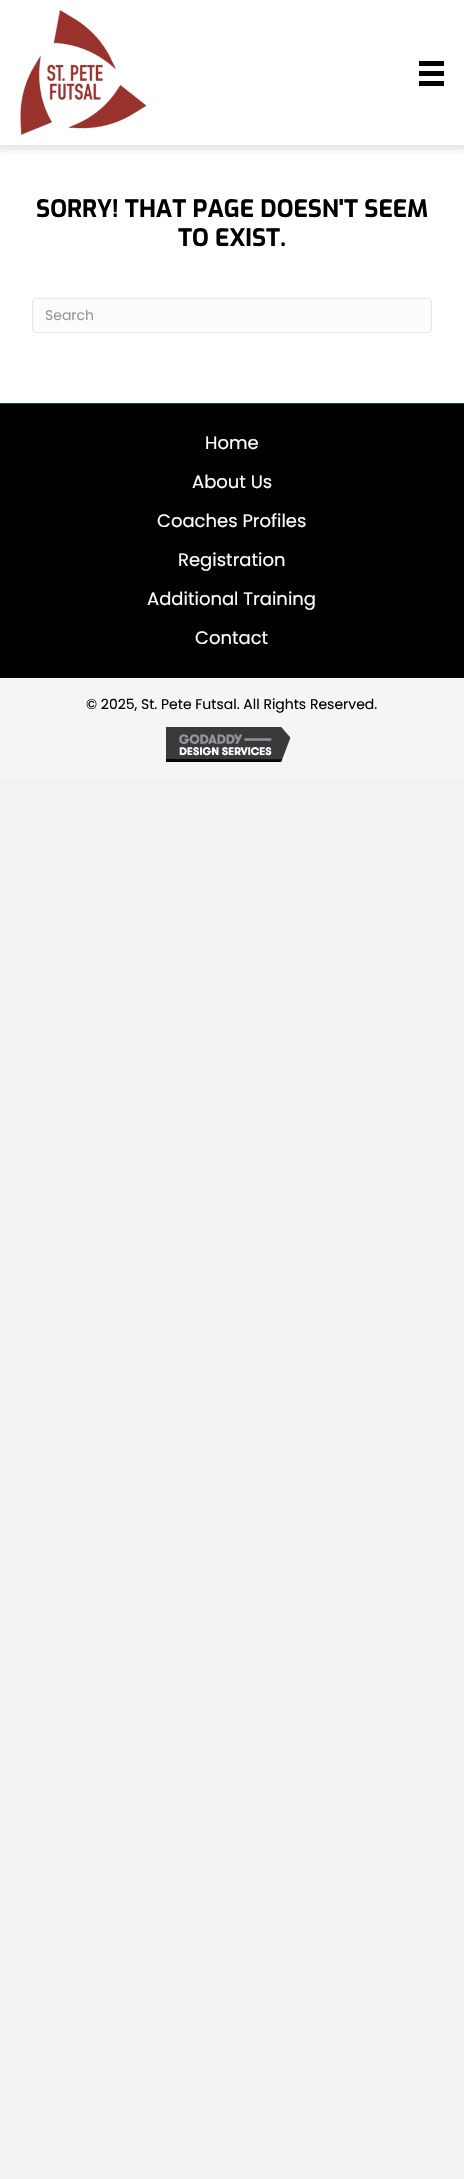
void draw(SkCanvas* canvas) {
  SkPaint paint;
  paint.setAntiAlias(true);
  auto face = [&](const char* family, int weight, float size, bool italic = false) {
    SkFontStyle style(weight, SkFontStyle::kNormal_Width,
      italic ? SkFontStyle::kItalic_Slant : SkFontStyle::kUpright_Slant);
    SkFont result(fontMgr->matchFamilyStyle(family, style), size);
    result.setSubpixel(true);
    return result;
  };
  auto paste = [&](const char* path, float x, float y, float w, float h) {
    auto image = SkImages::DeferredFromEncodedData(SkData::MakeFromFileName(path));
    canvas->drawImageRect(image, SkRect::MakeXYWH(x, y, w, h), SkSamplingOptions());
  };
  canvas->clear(0xfff2f2f2);
  paint.setColor(0xffffffff);
  canvas->drawRect(SkRect::MakeXYWH(0, 145, 464, 258), paint);
  paint.setColor(0x1a000000);
  paint.setMaskFilter(SkMaskFilter::MakeBlur(kNormal_SkBlurStyle, 3.5f));
  canvas->drawRect(SkRect::MakeXYWH(-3, -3, 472, 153), paint);
  paint.setMaskFilter(nullptr);
  paint.setColor(0xffffffff);
  canvas->drawRect(SkRect::MakeXYWH(0, 0, 464, 145), paint);
  paste("img/1.png", 20, 10, 127, 125);
  {
    const struct { float x, y, w, h; SkColor color; } items[] = {
      {419, 61, 25, 5, 0xff000000},
      {419, 71, 25, 5, 0xff000000},
      {419, 81, 25, 5, 0xff000000},
    };
    for (auto [x, y, w, h, color] : items) {
      paint.setColor(color);
      canvas->drawRect(SkRect::MakeXYWH(x, y, w, h), paint);
    }
  }
  paint.setColor(0xfffcfcfc);
  canvas->drawRoundRect(SkRect::MakeXYWH(32.5f, 298.5f, 399, 34), 3.5f, 3.5f, paint);
  paint.setStroke(true);
  paint.setStrokeWidth(1);
  paint.setColor(0xffe6e6e6);
  canvas->drawRoundRect(SkRect::MakeXYWH(32.5f, 298.5f, 399, 34), 3.5f, 3.5f, paint);
  paint.setStroke(false);
  {
    const struct { float x, y, w, h; SkColor color; } items[] = {
      {0, 404, 464, 274, 0xff000000},
      {0, 403, 464, 1, 0xff0c4975},
      {0, 678, 464, 100, 0xfff5f5f5},
    };
    for (auto [x, y, w, h, color] : items) {
      paint.setColor(color);
      canvas->drawRect(SkRect::MakeXYWH(x, y, w, h), paint);
    }
  }
  paste("img/2.png", 166, 727, 125, 35);
  auto f0 = face("Exo", 700, 24);
  paint.setColor(0xff000000);
  canvas->drawString("SORRY! THAT PAGE DOESN'T SEEM", 36, 217, f0, paint);
  canvas->drawString("TO EXIST.", 178, 246, f0, paint);
  auto f1 = face("Poppins", 400, 14);
  paint.setColor(0xff979797);
  canvas->drawString("Search", 45, 320, f1, paint);
  auto f2 = face("Poppins", 400, 18);
  paint.setColor(0xffffffff);
  {
    const struct { const char* s; float x, y; } items[] = {
      {"Home", 205, 449},
      {"About Us", 192, 488},
      {"Coaches Profiles", 157, 527},
      {"Registration", 178, 566},
      {"Additional Training", 147, 605},
      {"Contact", 195, 644},
    };
    for (auto [s, x, y] : items) {
      canvas->drawString(s, x, y, f2, paint);
    }
  }
  paint.setColor(0xff000000);
  canvas->drawString("© 2025, St. Pete Futsal. All Rights Reserved.", 86, 709, f1, paint);
}
